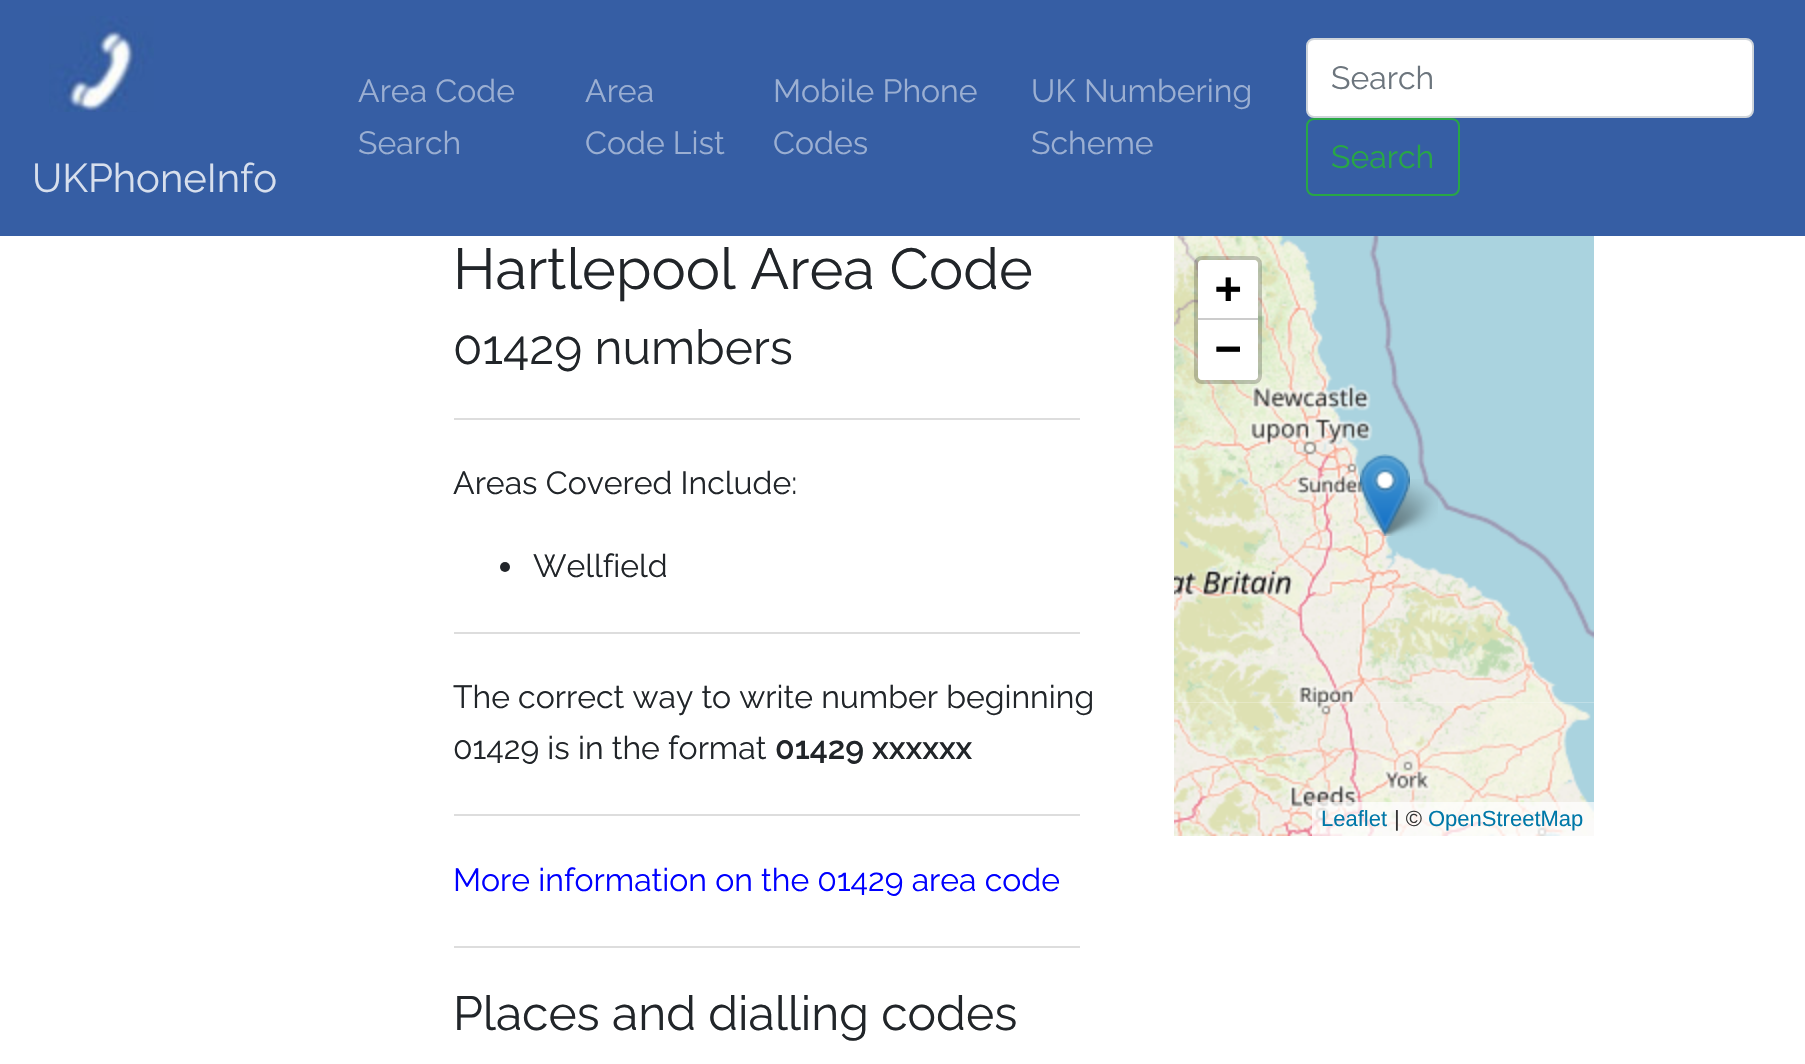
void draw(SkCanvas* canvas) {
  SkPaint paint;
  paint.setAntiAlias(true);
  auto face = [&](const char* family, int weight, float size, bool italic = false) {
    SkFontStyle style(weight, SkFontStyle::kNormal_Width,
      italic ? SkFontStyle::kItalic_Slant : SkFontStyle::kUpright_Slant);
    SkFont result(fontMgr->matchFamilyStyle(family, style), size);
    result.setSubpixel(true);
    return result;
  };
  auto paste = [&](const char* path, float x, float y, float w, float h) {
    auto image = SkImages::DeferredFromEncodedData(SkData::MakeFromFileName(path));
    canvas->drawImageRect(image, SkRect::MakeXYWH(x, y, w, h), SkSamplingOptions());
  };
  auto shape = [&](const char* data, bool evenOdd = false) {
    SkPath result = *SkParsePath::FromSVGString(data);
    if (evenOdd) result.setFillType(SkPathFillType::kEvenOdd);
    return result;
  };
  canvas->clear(0xffffffff);
  paint.setColor(0xff365ea4);
  canvas->drawRect(SkRect::MakeXYWH(0, 0, 1805, 236), paint);
  paint.setColor(0xffffffff);
  canvas->drawRoundRect(SkRect::MakeXYWH(1307, 39, 446, 78), 7, 7, paint);
  paint.setStroke(true);
  paint.setStrokeWidth(2);
  paint.setColor(0xffced4da);
  canvas->drawRoundRect(SkRect::MakeXYWH(1307, 39, 446, 78), 7, 7, paint);
  paint.setColor(0xff28a745);
  canvas->drawRoundRect(SkRect::MakeXYWH(1307, 119, 152, 76), 7, 7, paint);
  paste("img/1.png", 49, 16, 105, 96);
  paint.setStroke(false);
  paint.setColor(0xffdddddd);
  canvas->drawRect(SkRect::MakeXYWH(454, 418, 626, 2), paint);
  paint.setColor(0xff212529);
  canvas->drawCircle(505, 567, 5, paint);
  {
    const struct { float x, y, w, h; SkColor color; } items[] = {
      {454, 632, 626, 2, 0xffdddddd},
      {454, 814, 626, 2, 0xffdddddd},
      {454, 946, 626, 2, 0xffdddddd},
    };
    for (auto [x, y, w, h, color] : items) {
      paint.setColor(color);
      canvas->drawRect(SkRect::MakeXYWH(x, y, w, h), paint);
    }
  }
  paste("img/2.png", 1174, 236, 420, 466);
  paste("img/3.png", 1174, 701, 420, 135);
  paste("img/5.png", 1378, 479, 60, 57);
  paste("img/4.png", 1360, 454, 50, 82);
  paint.setStroke(true);
  paint.setStrokeWidth(4);
  paint.setColor(0x33000000);
  canvas->drawRoundRect(SkRect::MakeXYWH(1196, 258, 64, 124), 6, 6, paint);
  paint.setStroke(false);
  paint.setColor(0xffffffff);
  canvas->drawPath(shape("M1202 260H1254C1256 260 1258 262 1258 264V320H1198V264C1198 262 1200 260 1202 260Z"), paint);
  paint.setColor(0xffcccccc);
  canvas->drawRect(SkRect::MakeXYWH(1198, 318, 60, 2), paint);
  paint.setColor(0xffffffff);
  canvas->drawPath(shape("M1198 320H1258V376C1258 378 1256 380 1254 380H1202C1200 380 1198 378 1198 376Z"), paint);
  paint.setColor(0xb3ffffff);
  canvas->drawRect(SkRect::MakeXYWH(1312, 802, 282, 34), paint);
  auto f0 = face("Raleway", 400, 32);
  paint.setColor(0xff9bafd2);
  {
    const struct { const char* s; float x, y; } items[] = {
      {"Area Code", 358, 102},
      {"Search", 358, 154},
      {"Area", 585, 102},
      {"Code List", 585, 154},
      {"Mobile Phone", 773, 102},
      {"Codes", 773, 154},
      {"UK Numbering", 1031, 102},
      {"Scheme", 1031, 154},
    };
    for (auto [s, x, y] : items) {
      canvas->drawString(s, x, y, f0, paint);
    }
  }
  paint.setColor(0xff6c757d);
  canvas->drawString("Search", 1331, 89, f0, paint);
  paint.setColor(0xff28a745);
  canvas->drawString("Search", 1331, 168, f0, paint);
  auto f1 = face("Raleway", 400, 40);
  paint.setColor(0xffd7dfed);
  canvas->drawString("UKPhoneInfo", 32, 192, f1, paint);
  auto f2 = face("Raleway", 400, 57.6f);
  paint.setColor(0xff212529);
  canvas->drawString("Hartlepool Area Code", 453, 289, f2, paint);
  auto f3 = face("Raleway", 400, 48);
  canvas->drawString("01429 numbers", 453, 364, f3, paint);
  {
    const struct { const char* s; float x, y; } items[] = {
      {"Areas Covered Include:", 453, 494},
      {"Wellfield", 533, 577},
      {"The correct way to write number beginning", 453, 708},
      {"01429 is in the format", 453, 759},
    };
    for (auto [s, x, y] : items) {
      canvas->drawString(s, x, y, f0, paint);
    }
  }
  auto f4 = face("Raleway", 600, 32);
  canvas->drawString("01429 xxxxxx", 775, 759, f4, paint);
  paint.setColor(0xff0000ff);
  canvas->drawString("More information on the 01429 area code", 453, 891, f0, paint);
  paint.setColor(0xff212529);
  canvas->drawString("Places and dialling codes", 453, 1030, f3, paint);
  auto f5 = face("DejaVu Sans Mono", 700, 44);
  paint.setColor(0xff000000);
  canvas->drawString("+", 1215, 303, f5, paint);
  canvas->drawString("−", 1215, 363, f5, paint);
  auto f6 = face("Liberation Sans", 400, 22);
  paint.setColor(0xff0078a8);
  canvas->drawString("Leaflet", 1321, 826, f6, paint);
  paint.setColor(0xff333333);
  canvas->drawString("| ©", 1394, 826, f6, paint);
  paint.setColor(0xff0078a8);
  canvas->drawString("OpenStreetMap", 1428, 826, f6, paint);
}
